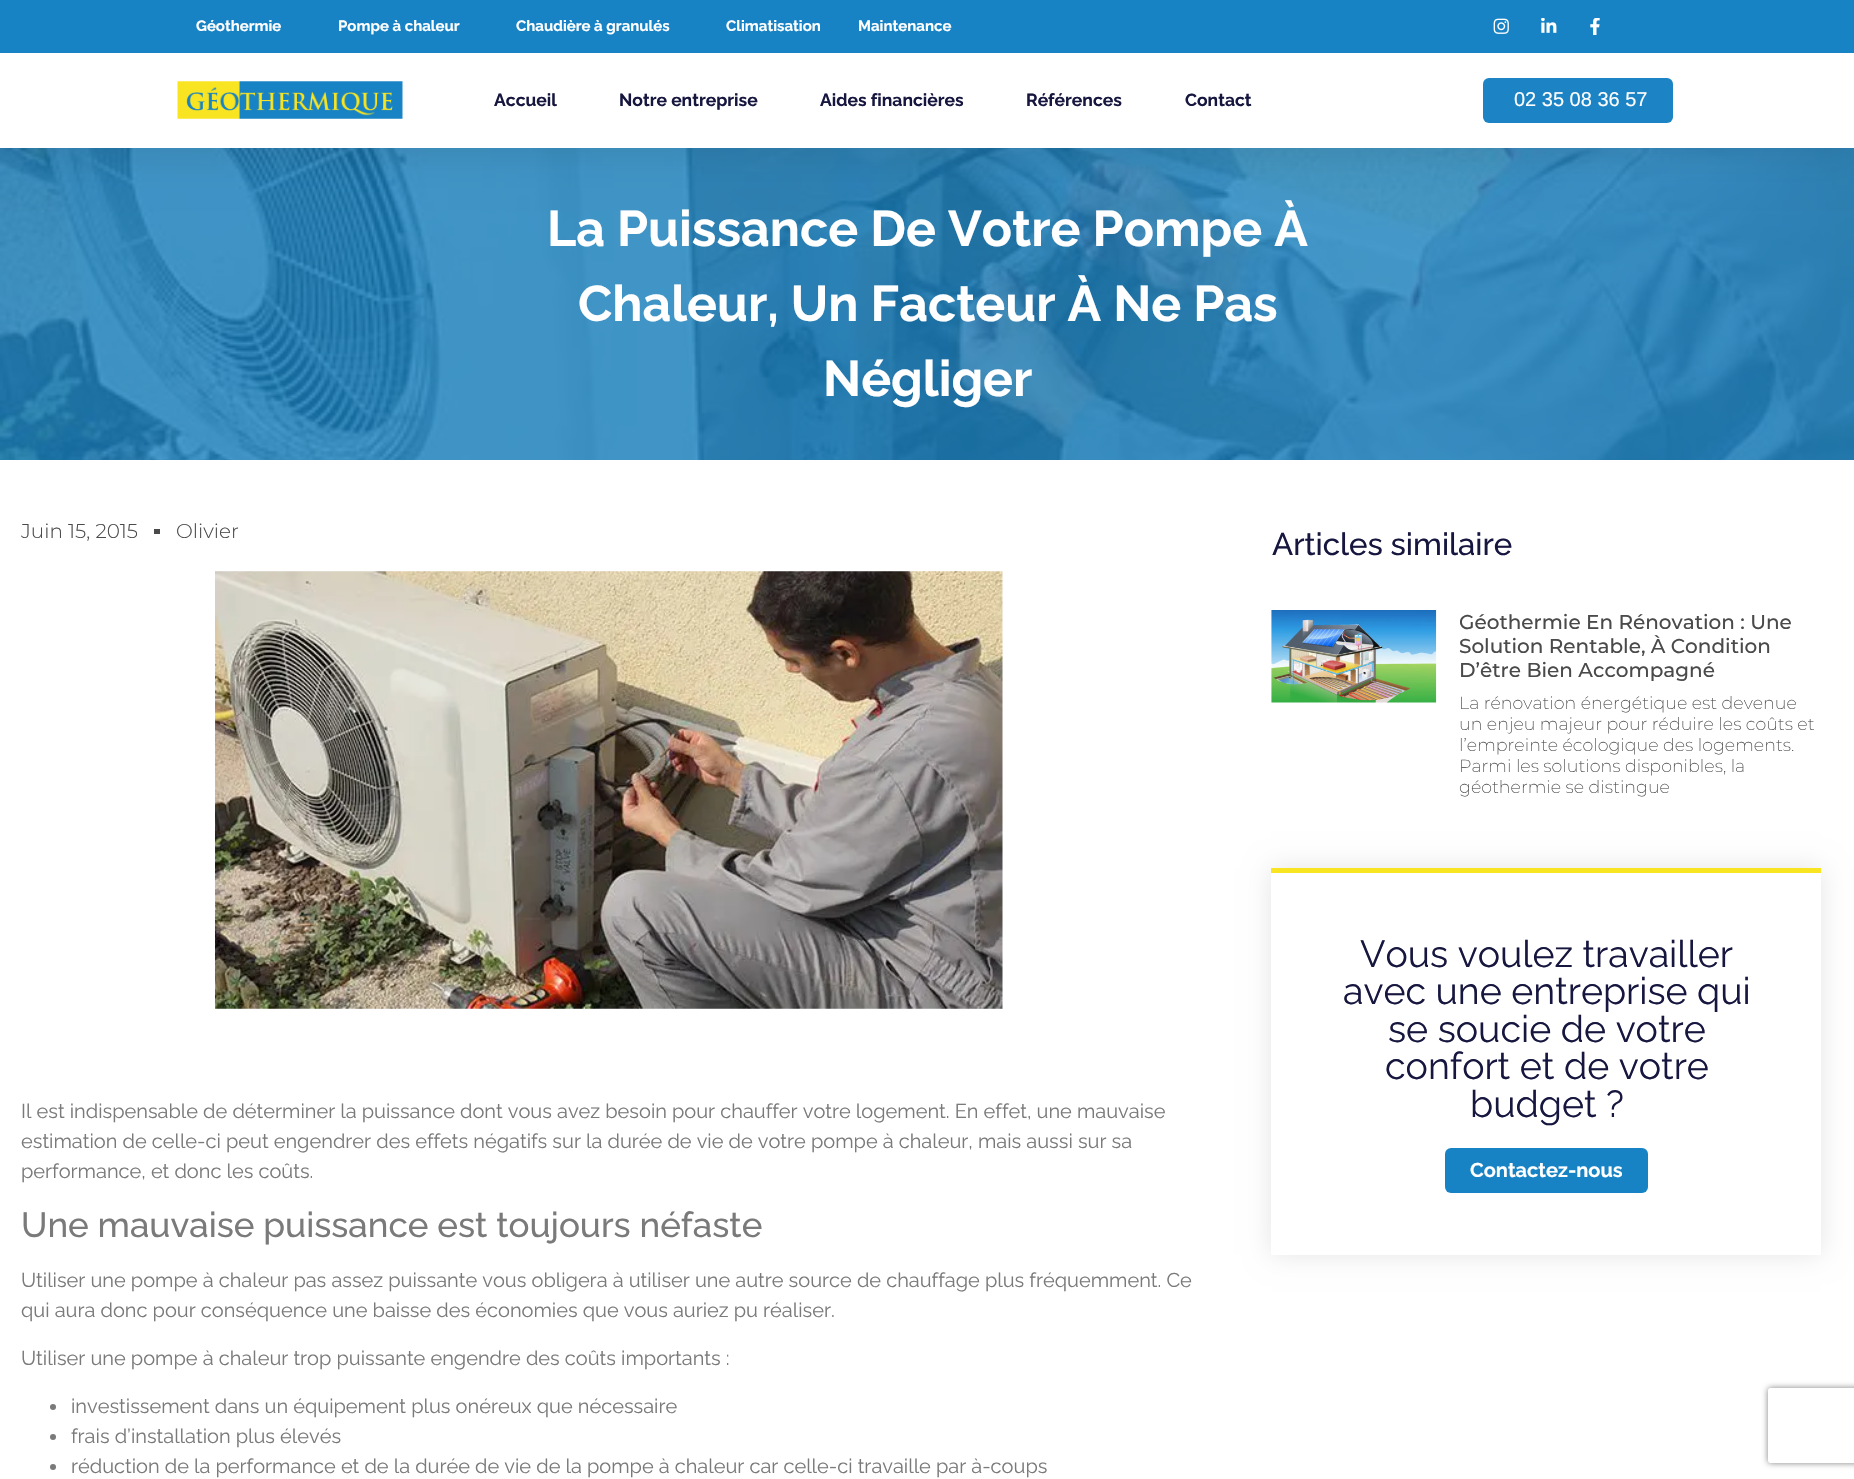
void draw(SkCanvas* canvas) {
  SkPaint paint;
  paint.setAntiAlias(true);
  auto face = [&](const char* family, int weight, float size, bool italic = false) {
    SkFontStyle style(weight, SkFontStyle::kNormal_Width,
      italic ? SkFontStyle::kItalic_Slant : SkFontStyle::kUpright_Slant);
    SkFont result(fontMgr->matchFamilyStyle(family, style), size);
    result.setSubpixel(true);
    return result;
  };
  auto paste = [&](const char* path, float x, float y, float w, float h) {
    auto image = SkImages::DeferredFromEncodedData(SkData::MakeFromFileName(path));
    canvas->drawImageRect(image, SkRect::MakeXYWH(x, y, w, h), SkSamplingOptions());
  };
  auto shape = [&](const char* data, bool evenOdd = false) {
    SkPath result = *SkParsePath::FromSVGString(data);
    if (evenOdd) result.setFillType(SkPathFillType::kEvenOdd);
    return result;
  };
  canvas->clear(0xffffffff);
  paint.setColor(0xff1883c4);
  canvas->drawRect(SkRect::MakeXYWH(0, 148, 1854, 312), paint);
  paste("img/5.png", 0, 148, 1854, 312);
  paint.setColor(0x1a000000);
  paint.setMaskFilter(SkMaskFilter::MakeBlur(kNormal_SkBlurStyle, 19));
  canvas->drawRect(SkRect::MakeXYWH(0, 6, 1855, 148), paint);
  paint.setMaskFilter(nullptr);
  paint.setColor(0xff1883c4);
  canvas->drawRect(SkRect::MakeXYWH(0, 0, 1854, 53), paint);
  paste("img/1.png", 1493, 18, 16, 16);
  paste("img/2.png", 1541, 18, 16, 15);
  paste("img/3.png", 1590, 18, 10, 17);
  paint.setColor(0xffffffff);
  canvas->drawRect(SkRect::MakeXYWH(0, 53, 1854, 95), paint);
  paste("img/4.png", 177, 81, 226, 38);
  paint.setColor(0xff1c84c4);
  canvas->drawRoundRect(SkRect::MakeXYWH(1483, 78, 190, 45), 6, 6, paint);
  paint.setColor(0xff4a4a4a);
  canvas->drawRect(SkRect::MakeXYWH(154, 529, 6, 5), paint);
  paste("img/6.png", 215, 571, 788, 438);
  paint.setColor(0xff7a7a7a);
  canvas->drawCircle(53, 1407, 3, paint);
  canvas->drawCircle(53, 1437, 3, paint);
  canvas->drawCircle(53, 1467, 3, paint);
  paste("img/7.png", 1271, 610, 166, 93);
  paint.setColor(0x1a000000);
  paint.setMaskFilter(SkMaskFilter::MakeBlur(kNormal_SkBlurStyle, 12.5f));
  canvas->drawRect(SkRect::MakeXYWH(1271, 868, 550, 387), paint);
  paint.setMaskFilter(nullptr);
  paint.setColor(0xffffffff);
  canvas->drawRect(SkRect::MakeXYWH(1271, 873, 550, 382), paint);
  paint.setColor(0xfff9e421);
  canvas->drawRect(SkRect::MakeXYWH(1271, 868, 550, 5), paint);
  paint.setColor(0xff1883c4);
  canvas->drawRoundRect(SkRect::MakeXYWH(1445, 1148, 203, 45), 6, 6, paint);
  canvas->save();
  canvas->clipPath(shape("M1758 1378H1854V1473H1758ZM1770.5 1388H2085.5C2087 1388 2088 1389 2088 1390.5V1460.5C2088 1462 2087 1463 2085.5 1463H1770.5C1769 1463 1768 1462 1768 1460.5V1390.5C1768 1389 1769 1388 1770.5 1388Z", true), true);
  paint.setColor(0xff808080);
  paint.setMaskFilter(SkMaskFilter::MakeBlur(kNormal_SkBlurStyle, 3));
  canvas->drawRoundRect(SkRect::MakeXYWH(1768, 1388, 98, 75), 2.5f, 2.5f, paint);
  paint.setMaskFilter(nullptr);
  canvas->restore();
  auto f0 = face("Raleway", 700, 15);
  paint.setColor(0xffffffff);
  {
    const struct { const char* s; float x, y; } items[] = {
      {"Géothermie", 196, 31},
      {"Pompe à chaleur", 338, 31},
      {"Chaudière à granulés", 516, 31},
      {"Climatisation", 726, 31},
      {"Maintenance", 858, 31},
    };
    for (auto [s, x, y] : items) {
      canvas->drawString(s, x, y, f0, paint);
    }
  }
  auto f1 = face("Raleway", 700, 17.5f);
  paint.setColor(0xff16163f);
  {
    const struct { const char* s; float x, y; } items[] = {
      {"Accueil", 494, 106},
      {"Notre entreprise", 619, 106},
      {"Aides financières", 820, 106},
      {"Références", 1026, 106},
      {"Contact", 1185, 106},
    };
    for (auto [s, x, y] : items) {
      canvas->drawString(s, x, y, f1, paint);
    }
  }
  auto f2 = face("Liberation Sans", 400, 20);
  paint.setColor(0xffffffff);
  canvas->drawString("02 35 08 36 57", 1514, 106, f2, paint);
  auto f3 = face("Raleway", 700, 50);
  {
    const struct { const char* s; float x, y; } items[] = {
      {"La Puissance De Votre Pompe À", 547, 246},
      {"Chaleur, Un Facteur À Ne Pas", 578, 321},
      {"Négliger", 823, 396},
    };
    for (auto [s, x, y] : items) {
      canvas->drawString(s, x, y, f3, paint);
    }
  }
  auto f4 = face("Montserrat", 300, 20);
  paint.setColor(0xff4a4a4a);
  canvas->drawString("Juin 15, 2015", 21, 538, f4, paint);
  canvas->drawString("Olivier", 176, 538, f4, paint);
  auto f5 = face("Raleway", 400, 20);
  paint.setColor(0xff7a7a7a);
  {
    const struct { const char* s; float x, y; } items[] = {
      {"Il est indispensable de déterminer la puissance dont vous avez besoin pour chauffer votre logement. En effet, une mauvaise", 21, 1118},
      {"estimation de celle-ci peut engendrer des effets négatifs sur la durée de vie de votre pompe à chaleur, mais aussi sur sa", 21, 1148},
      {"performance, et donc les coûts.", 21, 1178},
    };
    for (auto [s, x, y] : items) {
      canvas->drawString(s, x, y, f5, paint);
    }
  }
  auto f6 = face("Raleway", 500, 35);
  canvas->drawString("Une mauvaise puissance est toujours néfaste", 21, 1237, f6, paint);
  {
    const struct { const char* s; float x, y; } items[] = {
      {"Utiliser une pompe à chaleur pas assez puissante vous obligera à utiliser une autre source de chauffage plus fréquemment. Ce", 21, 1287},
      {"qui aura donc pour conséquence une baisse des économies que vous auriez pu réaliser.", 21, 1317},
      {"Utiliser une pompe à chaleur trop puissante engendre des coûts importants :", 21, 1365},
      {"investissement dans un équipement plus onéreux que nécessaire", 71, 1413},
      {"frais d’installation plus élevés", 71, 1443},
      {"réduction de la performance et de la durée de vie de la pompe à chaleur car celle-ci travaille par à-coups", 71, 1473},
    };
    for (auto [s, x, y] : items) {
      canvas->drawString(s, x, y, f5, paint);
    }
  }
  auto f7 = face("Raleway", 500, 31.25f);
  paint.setColor(0xff16163f);
  canvas->drawString("Articles similaire", 1272, 555, f7, paint);
  auto f8 = face("Montserrat", 500, 20);
  paint.setColor(0xff4a4a4a);
  {
    const struct { const char* s; float x, y; } items[] = {
      {"Géothermie En Rénovation : Une", 1459, 629},
      {"Solution Rentable, À Condition", 1459, 653},
      {"D’être Bien Accompagné", 1459, 677},
    };
    for (auto [s, x, y] : items) {
      canvas->drawString(s, x, y, f8, paint);
    }
  }
  auto f9 = face("Montserrat", 200, 17.5f);
  {
    const struct { const char* s; float x, y; } items[] = {
      {"La rénovation énergétique est devenue", 1459, 709},
      {"un enjeu majeur pour réduire les coûts et", 1459, 730},
      {"l’empreinte écologique des logements.", 1459, 751},
      {"Parmi les solutions disponibles, la", 1459, 772},
      {"géothermie se distingue", 1459, 793},
    };
    for (auto [s, x, y] : items) {
      canvas->drawString(s, x, y, f9, paint);
    }
  }
  auto f10 = face("Raleway", 400, 37.5f);
  paint.setColor(0xff16163f);
  {
    const struct { const char* s; float x, y; } items[] = {
      {"Vous voulez travailler", 1360, 967},
      {"avec une entreprise qui", 1343, 1004},
      {"se soucie de votre", 1388, 1042},
      {"confort et de votre", 1385, 1079},
      {"budget ?", 1470, 1117},
    };
    for (auto [s, x, y] : items) {
      canvas->drawString(s, x, y, f10, paint);
    }
  }
  auto f11 = face("Raleway", 700, 20);
  paint.setColor(0xffffffff);
  canvas->drawString("Contactez-nous", 1470, 1177, f11, paint);
}
